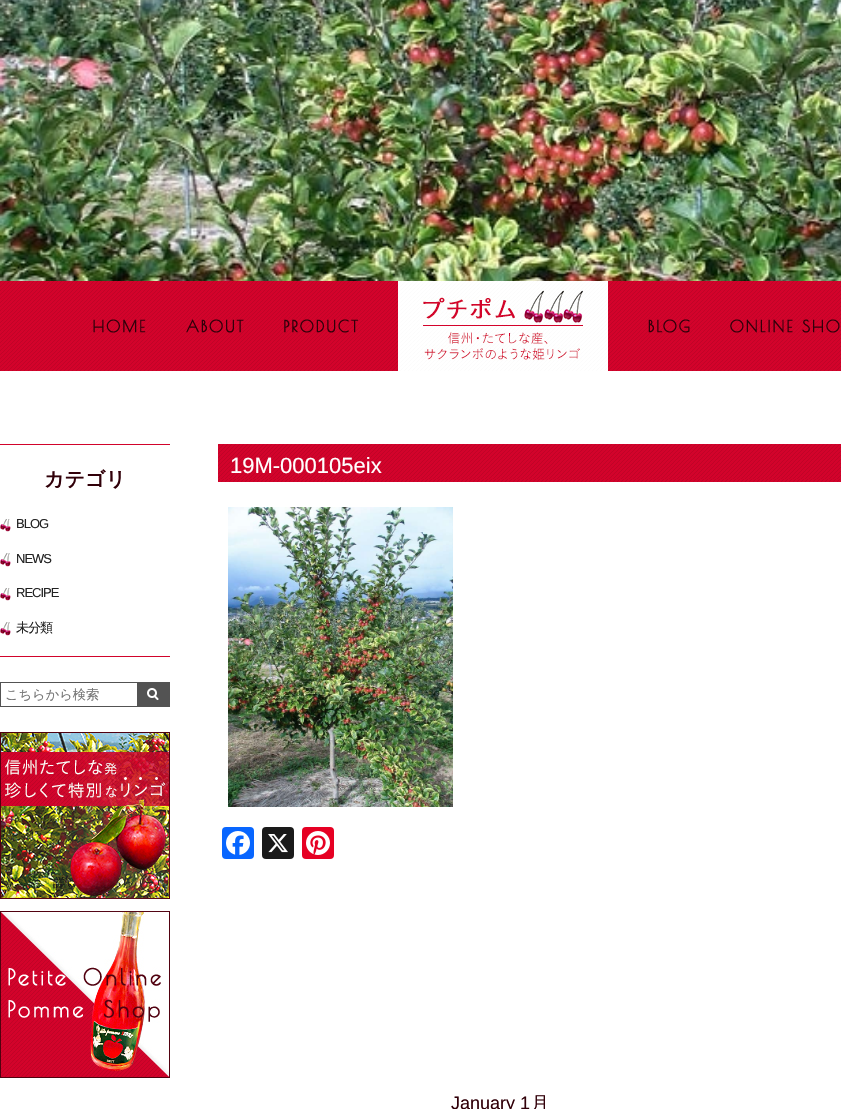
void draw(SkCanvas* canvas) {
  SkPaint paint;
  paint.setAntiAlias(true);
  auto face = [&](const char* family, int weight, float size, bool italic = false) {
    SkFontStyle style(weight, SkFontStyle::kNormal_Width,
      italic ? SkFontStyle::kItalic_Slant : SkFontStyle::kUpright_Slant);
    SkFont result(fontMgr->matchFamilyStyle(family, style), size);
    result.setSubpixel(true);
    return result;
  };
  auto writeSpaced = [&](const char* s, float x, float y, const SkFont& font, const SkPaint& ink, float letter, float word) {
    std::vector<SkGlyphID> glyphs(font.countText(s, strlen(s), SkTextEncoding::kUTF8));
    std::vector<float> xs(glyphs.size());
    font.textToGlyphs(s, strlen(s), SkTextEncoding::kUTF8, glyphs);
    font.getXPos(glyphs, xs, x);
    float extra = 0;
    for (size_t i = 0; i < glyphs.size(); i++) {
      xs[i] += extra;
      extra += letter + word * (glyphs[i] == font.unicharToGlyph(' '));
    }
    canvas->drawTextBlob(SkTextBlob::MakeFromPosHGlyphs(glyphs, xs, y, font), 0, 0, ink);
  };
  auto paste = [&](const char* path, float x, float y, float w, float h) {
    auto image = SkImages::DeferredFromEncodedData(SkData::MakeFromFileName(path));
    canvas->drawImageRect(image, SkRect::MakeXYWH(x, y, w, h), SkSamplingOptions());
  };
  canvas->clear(0xffffffff);
  paste("img/1.png", 0, 0, 841, 281);
  paste("img/2.png", 0, 281, 841, 90);
  paste("img/3.png", 93, 319, 53, 14);
  paste("img/4.png", 186, 319, 58, 14);
  paste("img/5.png", 284, 319, 74, 14);
  paste("img/6.png", 398, 281, 210, 90);
  paste("img/7.png", 648, 319, 42, 14);
  paste("img/8.png", 730, 319, 110, 14);
  paste("img/9.png", 218, 444, 623, 38);
  paste("img/10.png", 228, 507, 225, 300);
  paint.setColor(0xff0866ff);
  canvas->drawRoundRect(SkRect::MakeXYWH(222, 827, 32, 32), 4, 4, paint);
  paste("img/11.png", 226, 831, 24, 24);
  paint.setColor(0xff1a1a1a);
  canvas->drawRoundRect(SkRect::MakeXYWH(262, 827, 32, 32), 4, 4, paint);
  paste("img/12.png", 268, 834, 20, 19);
  paint.setColor(0xffe60023);
  canvas->drawRoundRect(SkRect::MakeXYWH(302, 827, 32, 32), 4, 4, paint);
  paste("img/13.png", 306, 831, 24, 24);
  paint.setColor(0xffd2032b);
  canvas->drawRect(SkRect::MakeXYWH(0, 444, 170, 1), paint);
  paste("img/14.png", 0, 519, 11, 13);
  paste("img/15.png", 0, 553, 11, 14);
  paste("img/14.png", 0, 588, 11, 13);
  paste("img/15.png", 0, 622, 11, 14);
  canvas->drawRect(SkRect::MakeXYWH(0, 656, 170, 1), paint);
  paint.setStroke(true);
  paint.setStrokeWidth(1);
  paint.setColor(0xff535353);
  canvas->drawRect(SkRect::MakeXYWH(0.5f, 682.5f, 169, 24), paint);
  paste("img/16.png", 137, 683, 32, 23);
  paste("img/17.png", 0, 732, 170, 167);
  paste("img/18.png", 0, 911, 170, 167);
  auto f0 = face("Liberation Sans", 400, 22);
  paint.setStroke(false);
  paint.setColor(0xffffffff);
  canvas->drawString("19M-000105eix", 230, 473, f0, paint);
  auto f1 = face("WenQuanYi Zen Hei", 700, 20);
  paint.setColor(0xff310009);
  canvas->drawString("カテゴリ", 44, 486, f1, paint);
  auto f2 = face("Liberation Sans", 400, 13);
  paint.setColor(0xff222222);
  {
    const struct { const char* s; float x, y; } items[] = {
      {"BLOG", 16, 528},
      {"NEWS", 16, 563},
      {"RECIPE", 16, 597},
    };
    for (auto [s, x, y] : items) {
      writeSpaced(s, x, y, f2, paint, -1, 0);
    }
  }
  auto f3 = face("WenQuanYi Zen Hei", 500, 13);
  writeSpaced("未分類", 16, 632, f3, paint, -1, 0);
  auto f4 = face("WenQuanYi Zen Hei", 500, 13.25f);
  paint.setColor(0xff757575);
  canvas->drawString("こちらから検索", 5, 699, f4, paint);
  auto f5 = face("Liberation Sans", 400, 18);
  paint.setColor(0xff310009);
  canvas->drawString("January 1", 451, 1109, f5, paint);
  auto f6 = face("WenQuanYi Zen Hei", 500, 18);
  canvas->drawString("月", 531, 1109, f6, paint);
}
